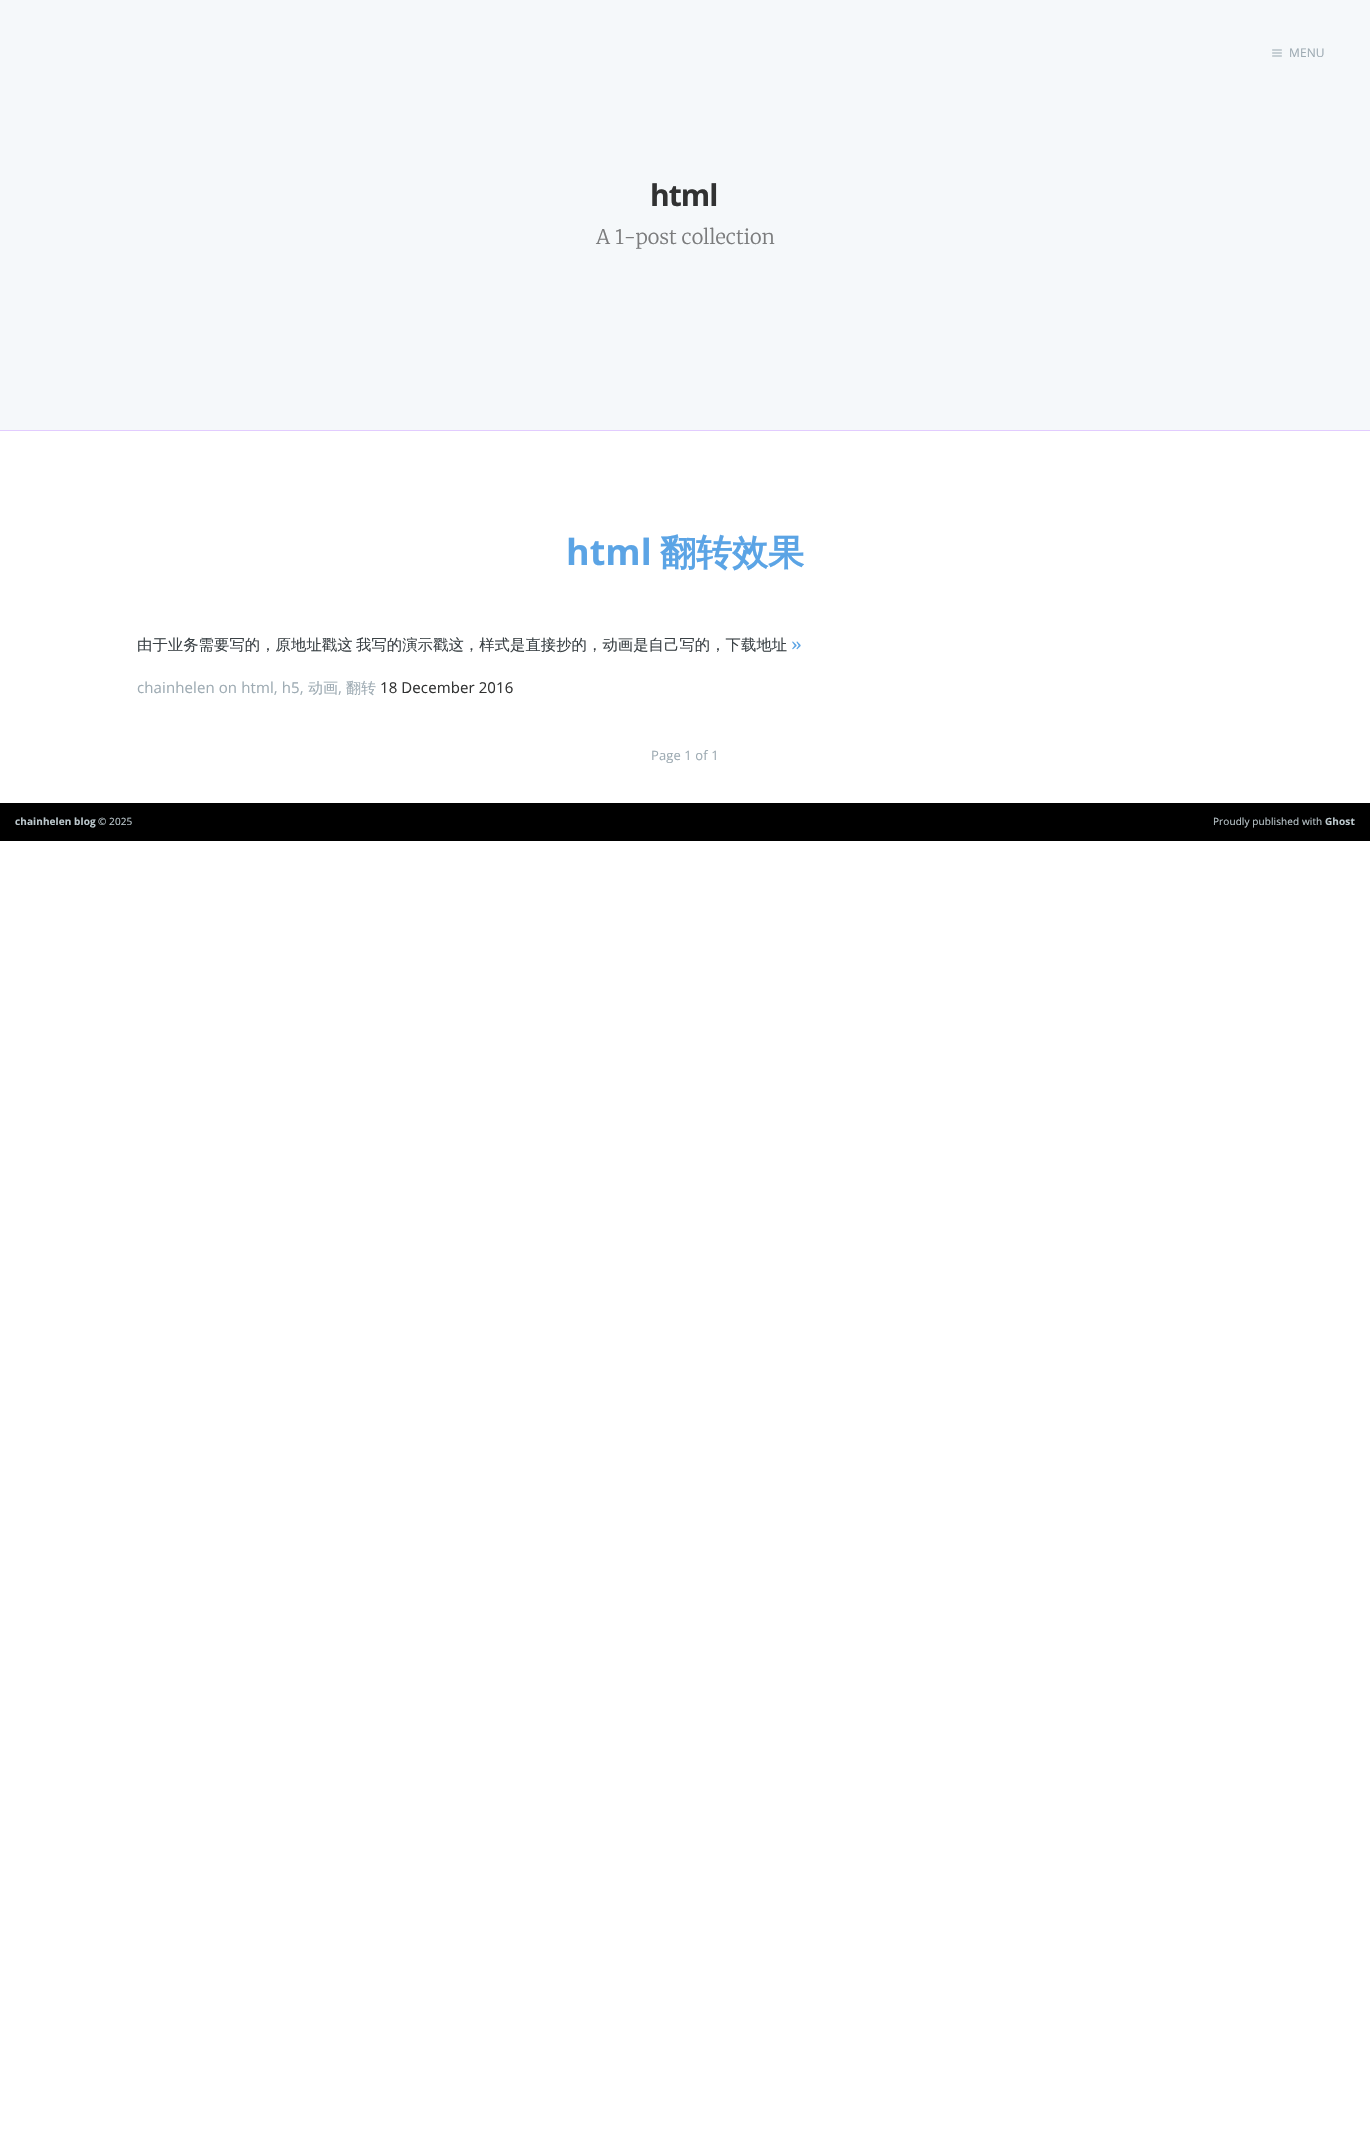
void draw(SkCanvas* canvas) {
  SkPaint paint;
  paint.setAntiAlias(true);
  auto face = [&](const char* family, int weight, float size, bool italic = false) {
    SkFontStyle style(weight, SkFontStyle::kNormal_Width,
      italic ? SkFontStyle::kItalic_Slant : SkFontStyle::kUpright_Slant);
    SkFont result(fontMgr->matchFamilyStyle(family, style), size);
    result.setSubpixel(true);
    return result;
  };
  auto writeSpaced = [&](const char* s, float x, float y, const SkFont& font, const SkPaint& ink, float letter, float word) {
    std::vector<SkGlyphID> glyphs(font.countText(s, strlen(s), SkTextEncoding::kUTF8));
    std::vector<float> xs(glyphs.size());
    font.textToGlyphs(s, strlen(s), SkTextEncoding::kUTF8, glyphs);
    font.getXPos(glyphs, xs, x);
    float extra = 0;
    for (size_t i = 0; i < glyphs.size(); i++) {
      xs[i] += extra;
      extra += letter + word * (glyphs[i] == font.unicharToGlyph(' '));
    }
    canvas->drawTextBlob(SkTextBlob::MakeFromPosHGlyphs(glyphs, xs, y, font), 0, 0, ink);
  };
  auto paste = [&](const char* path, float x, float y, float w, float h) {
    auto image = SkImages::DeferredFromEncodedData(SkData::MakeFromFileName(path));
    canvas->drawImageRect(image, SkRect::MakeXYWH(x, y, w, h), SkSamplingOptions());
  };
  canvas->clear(0xffffffff);
  paint.setColor(0xfff5f8fa);
  canvas->drawRect(SkRect::MakeXYWH(0, 0, 1370, 430), paint);
  paste("img/1.png", 1272, 49, 10, 8);
  paint.setColor(0xffe2ccff);
  canvas->drawRect(SkRect::MakeXYWH(0, 430, 1370, 1), paint);
  paint.setColor(0xff000000);
  canvas->drawRect(SkRect::MakeXYWH(0, 803, 1370, 38), paint);
  auto f0 = face("Open Sans", 400, 12);
  paint.setColor(0xff9eabb3);
  writeSpaced("MENU", 1289, 57, f0, paint, 0.1f, 0);
  auto f1 = face("Open Sans", 700, 30);
  paint.setColor(0xff313232);
  writeSpaced("html", 650, 206, f1, paint, -1, 0);
  auto f2 = face("Merriweather", 300, 20);
  paint.setColor(0xff7b7c7d);
  writeSpaced("A 1-post collection", 596, 244, f2, paint, 0.1f, 0);
  auto f3 = face("Open Sans", 700, 36);
  paint.setColor(0xff5ba4e5);
  canvas->drawString("html", 566, 565, f3, paint);
  auto f4 = face("WenQuanYi Zen Hei", 700, 36);
  canvas->drawString("翻转效果", 660, 565, f4, paint);
  auto f5 = face("WenQuanYi Zen Hei", 500, 15.3f);
  paint.setColor(0xff3a4145);
  writeSpaced("由于业务需要写的，原地址戳这", 137, 650, f5, paint, 0.1f, 0);
  writeSpaced("我写的演示戳这，样式是直接抄的，动画是自己写的，下载地址", 356, 650, f5, paint, 0.1f, 0);
  auto f6 = face("Merriweather", 400, 15.3f);
  paint.setColor(0xff5ba4e5);
  writeSpaced("»", 791, 650, f6, paint, 0.1f, 0);
  auto f7 = face("Open Sans", 400, 15);
  paint.setColor(0xff9eabb3);
  writeSpaced("chainhelen on html, h5,", 137, 693, f7, paint, 0.1f, 0);
  auto f8 = face("WenQuanYi Zen Hei", 500, 15);
  writeSpaced("动画", 308, 693, f8, paint, 0.1f, 0);
  writeSpaced(",", 338, 693, f7, paint, 0.1f, 0);
  writeSpaced("翻转", 346, 693, f8, paint, 0.1f, 0);
  paint.setColor(0xff313232);
  writeSpaced("18 December 2016", 380, 693, f7, paint, 0.1f, 0);
  auto f9 = face("Open Sans", 400, 13);
  paint.setColor(0xff9eabb3);
  writeSpaced("Page 1 of 1", 651, 760, f9, paint, 0.1f, 0);
  auto f10 = face("Open Sans", 700, 10);
  paint.setColor(0xffbbc7cc);
  writeSpaced("chainhelen blog", 15, 825, f10, paint, 0.1f, 0);
  auto f11 = face("Open Sans", 400, 10);
  writeSpaced("© 2025", 98, 825, f11, paint, 0.1f, 0);
  writeSpaced("Proudly published with", 1213, 825, f11, paint, 0.1f, 0);
  writeSpaced("Ghost", 1325, 825, f10, paint, 0.1f, 0);
}
